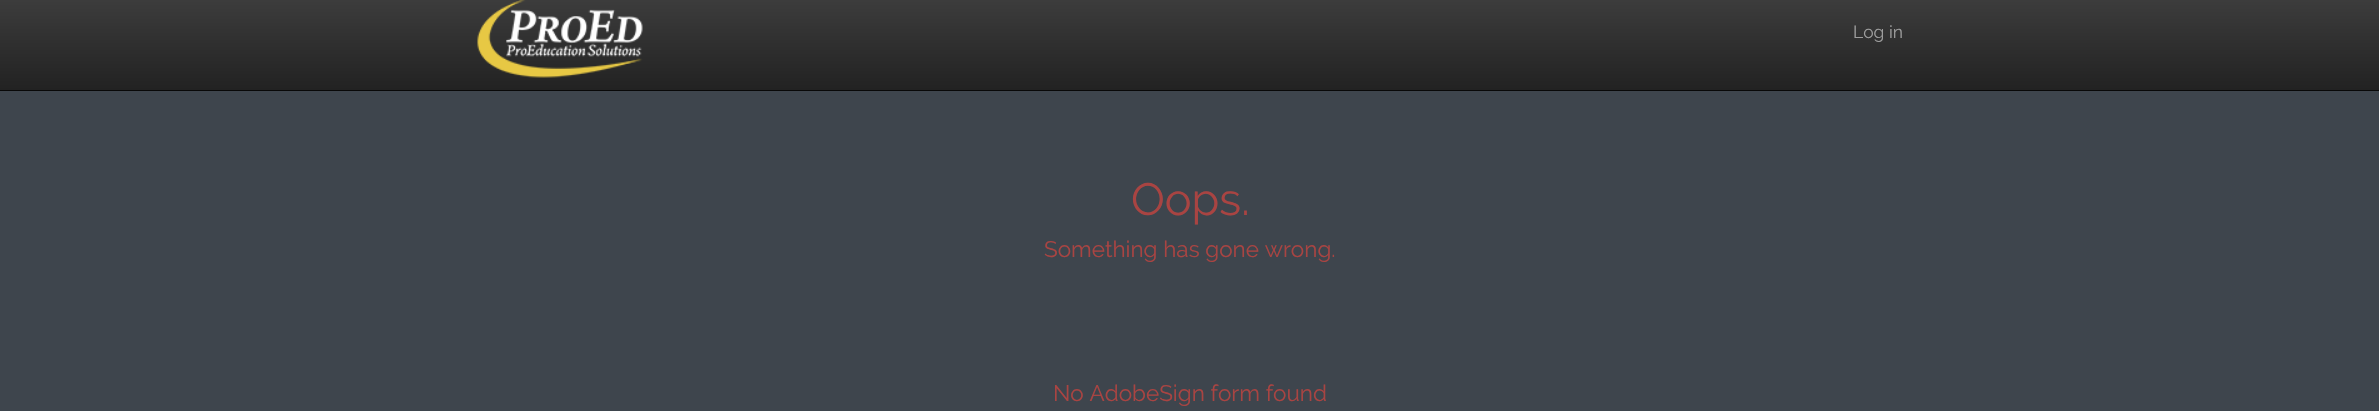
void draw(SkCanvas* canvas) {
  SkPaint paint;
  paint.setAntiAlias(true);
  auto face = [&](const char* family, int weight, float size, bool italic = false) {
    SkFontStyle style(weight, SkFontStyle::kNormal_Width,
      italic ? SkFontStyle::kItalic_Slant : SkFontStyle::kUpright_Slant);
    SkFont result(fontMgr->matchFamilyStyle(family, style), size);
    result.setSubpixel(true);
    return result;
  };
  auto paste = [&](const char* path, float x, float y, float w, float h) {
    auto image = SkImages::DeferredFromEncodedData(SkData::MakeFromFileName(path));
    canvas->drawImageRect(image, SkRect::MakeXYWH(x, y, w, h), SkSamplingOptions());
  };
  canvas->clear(0xff3e454d);
  {
    const SkColor colors[] = {0xff3c3c3c, 0xff222222};
    const float stops[] = {0, 1};
    const SkPoint ends[] = {{1190, 0}, {1190, 90}};
    paint.setShader(SkGradientShader::MakeLinear(ends, colors, stops, 2, SkTileMode::kClamp));
    paint.setAlpha(255);
  }
  canvas->drawRect(SkRect::MakeXYWH(0, 0, 2379, 90), paint);
  paint.setShader(nullptr);
  paint.setColor(0xff080808);
  canvas->drawRect(SkRect::MakeXYWH(0, 90, 2379, 1), paint);
  paste("img/1.png", 477, 0, 166, 78);
  auto f0 = face("Raleway", 400, 17.5f);
  paint.setColor(0xff9d9d9d);
  canvas->drawString("Log in", 1853, 38, f0, paint);
  auto f1 = face("Raleway", 400, 45);
  paint.setColor(0xffa94442);
  canvas->drawString("Oops.", 1131, 215, f1, paint);
  auto f2 = face("Raleway", 400, 22.5f);
  canvas->drawString("Something has gone wrong.", 1044, 257, f2, paint);
  canvas->drawString("No AdobeSign form found", 1053, 401, f2, paint);
}
